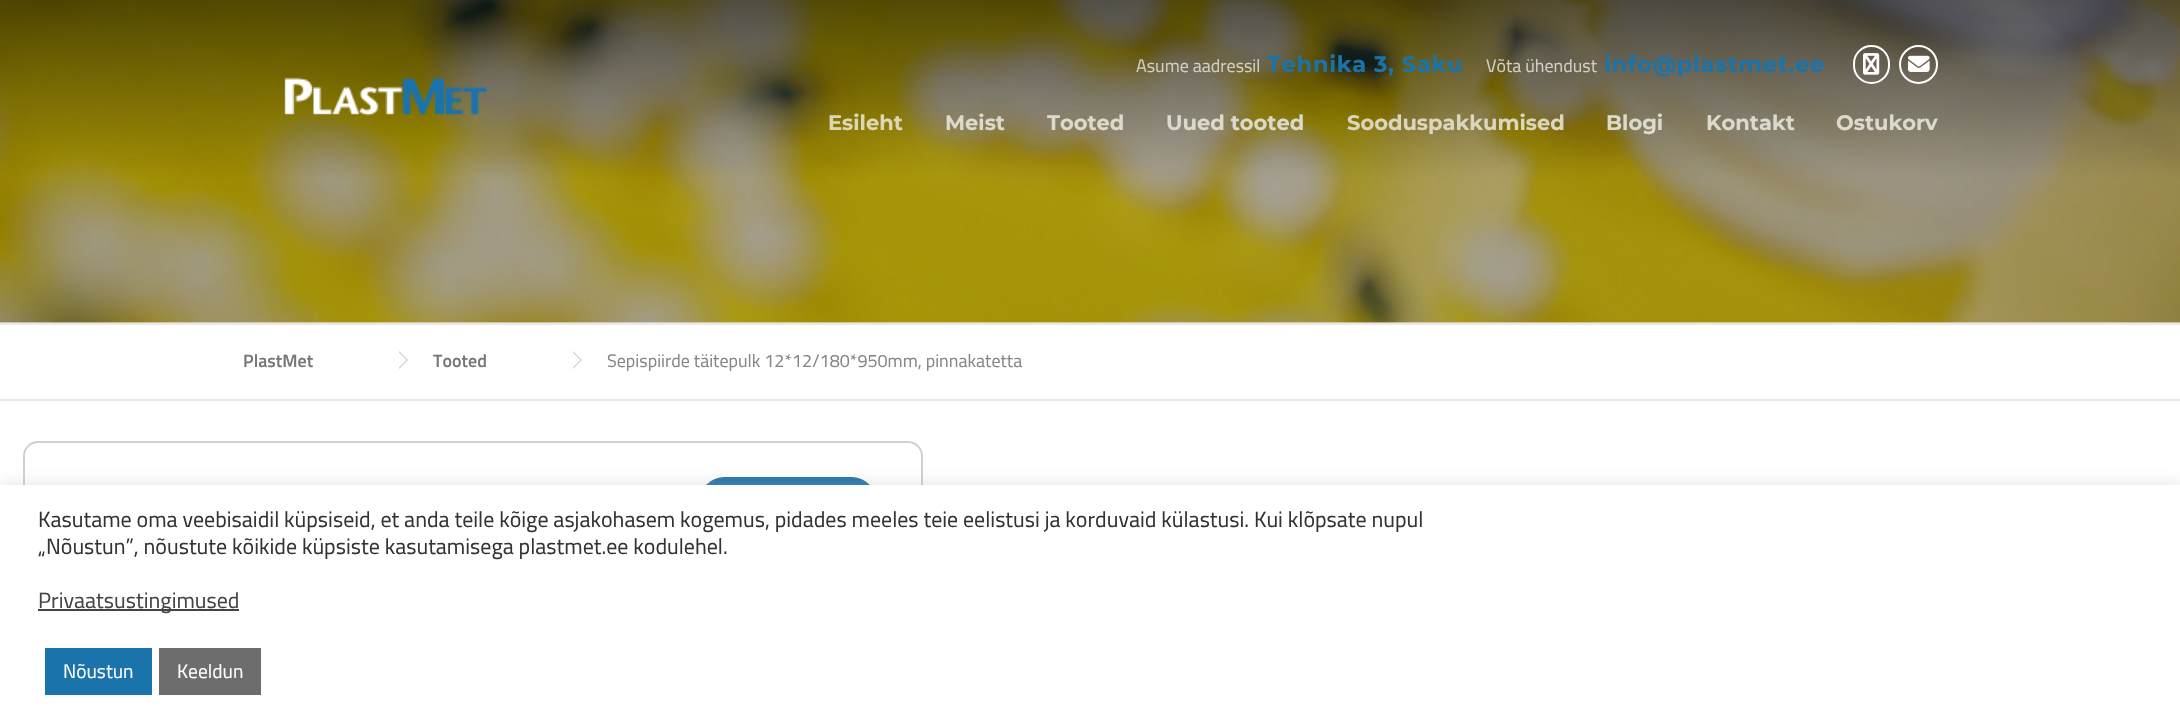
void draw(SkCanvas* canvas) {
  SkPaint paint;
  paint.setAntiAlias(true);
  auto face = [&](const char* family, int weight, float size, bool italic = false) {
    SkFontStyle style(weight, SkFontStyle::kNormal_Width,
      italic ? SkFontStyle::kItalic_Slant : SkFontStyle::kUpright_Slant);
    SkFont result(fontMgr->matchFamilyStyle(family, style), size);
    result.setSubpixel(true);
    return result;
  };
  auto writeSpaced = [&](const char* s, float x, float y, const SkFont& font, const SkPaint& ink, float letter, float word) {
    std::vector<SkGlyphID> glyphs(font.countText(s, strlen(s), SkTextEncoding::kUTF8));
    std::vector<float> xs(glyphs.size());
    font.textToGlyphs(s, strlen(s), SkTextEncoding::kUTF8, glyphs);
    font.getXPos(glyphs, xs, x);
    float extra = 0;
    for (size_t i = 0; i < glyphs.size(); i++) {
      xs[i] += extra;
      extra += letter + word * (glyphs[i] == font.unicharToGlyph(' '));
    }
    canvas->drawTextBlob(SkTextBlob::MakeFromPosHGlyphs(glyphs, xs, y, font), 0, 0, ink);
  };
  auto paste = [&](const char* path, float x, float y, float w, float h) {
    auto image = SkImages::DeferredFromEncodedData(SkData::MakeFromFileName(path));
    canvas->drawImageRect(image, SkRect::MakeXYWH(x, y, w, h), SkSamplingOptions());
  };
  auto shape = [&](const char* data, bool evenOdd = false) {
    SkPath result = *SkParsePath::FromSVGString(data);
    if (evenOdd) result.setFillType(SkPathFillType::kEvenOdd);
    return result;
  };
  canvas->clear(0xffffffff);
  paste("img/4.png", 0, 0, 2180, 323);
  paste("img/1.png", 284, 77, 204, 39);
  paint.setStroke(true);
  paint.setStrokeWidth(2);
  paint.setColor(0xffffffff);
  canvas->drawRoundRect(SkRect::MakeXYWH(1854, 46, 35, 37), 17.5f, 17.5f, paint);
  paste("img/2.png", 1863, 53, 17, 22);
  canvas->drawCircle(1918.5f, 64.5f, 18.5f, paint);
  paste("img/3.png", 1908, 55, 22, 17);
  paint.setStroke(false);
  paint.setColor(0xffe9e9e9);
  canvas->drawRect(SkRect::MakeXYWH(0, 323, 2180, 2), paint);
  canvas->drawRect(SkRect::MakeXYWH(0, 399, 2180, 2), paint);
  paint.setColor(0xffcccccc);
  canvas->drawPath(shape("M399 369V351L408 360Z"), paint);
  paint.setColor(0xffffffff);
  canvas->drawPath(shape("M399 367.5V352.5L406.5 360Z"), paint);
  paint.setColor(0xffcccccc);
  canvas->drawPath(shape("M573 369V351L582 360Z"), paint);
  paint.setColor(0xffffffff);
  canvas->drawPath(shape("M573 367.5V352.5L580.5 360Z"), paint);
  paint.setStroke(true);
  paint.setColor(0xffd3ced2);
  canvas->drawRoundRect(SkRect::MakeXYWH(24, 442, 898, 250), 14, 14, paint);
  paint.setStroke(false);
  paint.setColor(0xff2273aa);
  canvas->drawRoundRect(SkRect::MakeXYWH(698, 477, 180, 54), 27, 27, paint);
  paint.setColor(0x4dacabab);
  paint.setMaskFilter(SkMaskFilter::MakeBlur(kNormal_SkBlurStyle, 7.5f));
  canvas->drawRect(SkRect::MakeXYWH(0, 483, 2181, 231), paint);
  paint.setMaskFilter(nullptr);
  {
    const struct { float x, y, w, h; SkColor color; } items[] = {
      {0, 485, 2180, 230, 0xffffffff},
      {38, 609, 201, 2, 0xff444444},
      {45, 648, 107, 47, 0xff1a73aa},
      {159, 648, 102, 47, 0xff6d6d6d},
    };
    for (auto [x, y, w, h, color] : items) {
      paint.setColor(color);
      canvas->drawRect(SkRect::MakeXYWH(x, y, w, h), paint);
    }
  }
  auto f0 = face("Titillium Web", 400, 18);
  paint.setColor(0xffd1cfc7);
  canvas->drawString("Asume aadressil", 1136, 72, f0, paint);
  auto f1 = face("Montserrat", 100, 22.5f);
  paint.setColor(0xff1a73aa);
  writeSpaced("Tehnika 3, Saku", 1267, 72, f1, paint, 0.75f, 0);
  paint.setColor(0xffd1cfc7);
  canvas->drawString("Võta ühendust", 1486, 72, f0, paint);
  paint.setColor(0xff1a73aa);
  writeSpaced("info@plastmet.ee", 1604, 72, f1, paint, 0.75f, 0);
  auto f2 = face("Montserrat", 100, 21);
  paint.setColor(0xffdcd7b4);
  canvas->drawString("Esileht", 828, 130, f2, paint);
  paint.setColor(0xffdcd9cd);
  {
    const struct { const char* s; float x, y; } items[] = {
      {"Meist", 945, 130},
      {"Tooted", 1047, 130},
      {"Uued tooted", 1166, 130},
    };
    for (auto [s, x, y] : items) {
      canvas->drawString(s, x, y, f2, paint);
    }
  }
  paint.setColor(0xffdbd6be);
  canvas->drawString("Sooduspakkumised", 1347, 130, f2, paint);
  paint.setColor(0xffdcd9cd);
  {
    const struct { const char* s; float x, y; } items[] = {
      {"Blogi", 1606, 130},
      {"Kontakt", 1706, 130},
      {"Ostukorv", 1836, 130},
    };
    for (auto [s, x, y] : items) {
      canvas->drawString(s, x, y, f2, paint);
    }
  }
  auto f3 = face("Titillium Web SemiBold", 600, 18);
  paint.setColor(0xff777777);
  canvas->drawString("PlastMet", 243, 367, f3, paint);
  canvas->drawString("Tooted", 433, 367, f3, paint);
  paint.setColor(0xff858585);
  canvas->drawString("Sepispiirde täitepulk 12*12/180*950mm, pinnakatetta", 607, 367, f0, paint);
  auto f4 = face("Titillium Web", 400, 22);
  paint.setColor(0xff333333);
  canvas->drawString("Kasutame oma veebisaidil küpsiseid, et anda teile kõige asjakohasem kogemus, pidades meeles teie eelistusi ja korduvaid külastusi. Kui klõpsate nupul", 38, 527, f4, paint);
  canvas->drawString("„Nõustun”, nõustute kõikide küpsiste kasutamisega plastmet.ee kodulehel.", 38, 554, f4, paint);
  paint.setColor(0xff444444);
  canvas->drawString("Privaatsustingimused", 38, 608, f4, paint);
  auto f5 = face("Titillium Web", 400, 19.5f);
  paint.setColor(0xffffffff);
  canvas->drawString("Nõustun", 63, 678, f5, paint);
  canvas->drawString("Keeldun", 177, 678, f5, paint);
}
